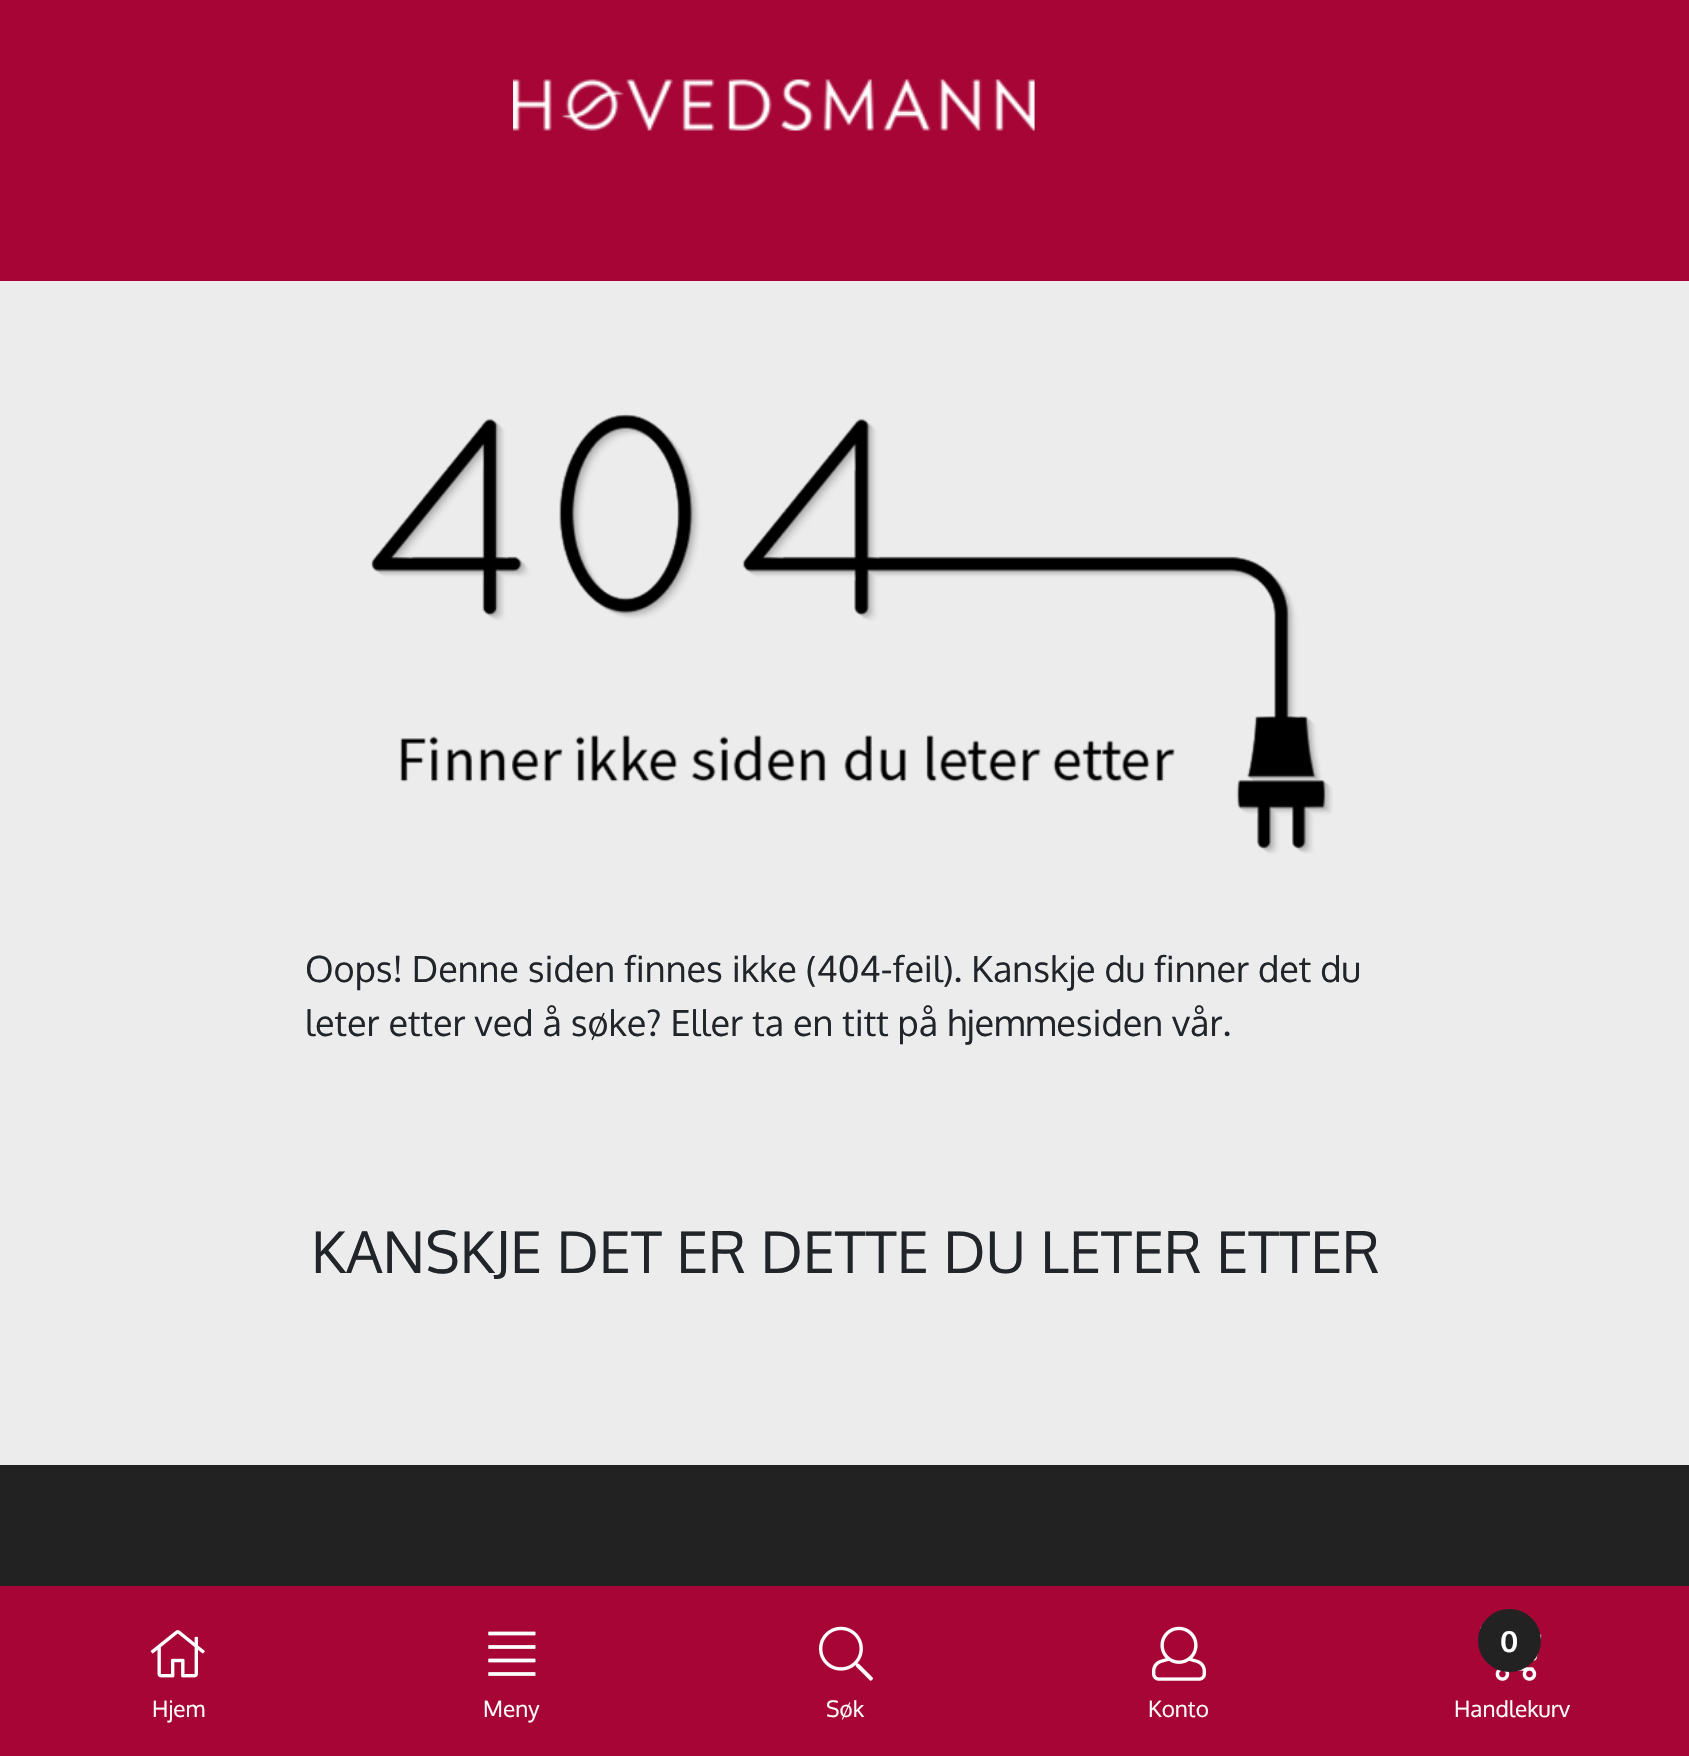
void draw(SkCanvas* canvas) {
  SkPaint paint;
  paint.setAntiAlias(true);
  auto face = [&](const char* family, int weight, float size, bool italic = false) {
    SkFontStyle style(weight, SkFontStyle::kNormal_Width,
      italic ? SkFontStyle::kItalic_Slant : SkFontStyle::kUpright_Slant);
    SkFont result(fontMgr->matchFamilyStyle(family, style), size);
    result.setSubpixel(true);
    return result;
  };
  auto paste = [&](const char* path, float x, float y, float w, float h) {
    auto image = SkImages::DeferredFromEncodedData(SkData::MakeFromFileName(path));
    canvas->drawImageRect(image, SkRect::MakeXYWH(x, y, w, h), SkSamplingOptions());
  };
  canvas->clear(0xffececec);
  paint.setColor(0xffa60536);
  canvas->drawRect(SkRect::MakeXYWH(0, 0, 1689, 281), paint);
  paste("img/1.png", 513, 79, 522, 52);
  paste("img/2.png", 370, 414, 963, 440);
  paint.setColor(0xff222222);
  canvas->drawRect(SkRect::MakeXYWH(0, 1465, 1689, 121), paint);
  paint.setColor(0xffa60536);
  canvas->drawRect(SkRect::MakeXYWH(0, 1586, 1689, 170), paint);
  paste("img/3.png", 150, 1630, 55, 48);
  paste("img/4.png", 488, 1631, 48, 45);
  paste("img/5.png", 819, 1626, 54, 55);
  paste("img/6.png", 1152, 1626, 54, 55);
  paste("img/7.png", 1480, 1626, 62, 55);
  paint.setColor(0xff222222);
  canvas->drawCircle(1509.5f, 1640.5f, 29, paint);
  paint.setStroke(true);
  paint.setStrokeWidth(5);
  canvas->drawCircle(1509.5f, 1640.5f, 29, paint);
  auto f0 = face("Oxygen", 400, 36);
  paint.setStroke(false);
  paint.setColor(0xff212529);
  canvas->drawString("Oops! Denne siden finnes ikke (404-feil). Kanskje du finner det du", 305, 982, f0, paint);
  canvas->drawString("leter etter ved å søke? Eller ta en titt på hjemmesiden vår.", 305, 1036, f0, paint);
  auto f1 = face("Oxygen", 400, 57.6f);
  canvas->drawString("KANSKJE DET ER DETTE DU LETER ETTER", 311, 1273, f1, paint);
  auto f2 = face("Oxygen", 400, 22.5f);
  paint.setColor(0xffffffff);
  {
    const struct { const char* s; float x, y; } items[] = {
      {"Hjem", 152, 1717},
      {"Meny", 483, 1717},
      {"Søk", 826, 1717},
      {"Konto", 1148, 1717},
    };
    for (auto [s, x, y] : items) {
      canvas->drawString(s, x, y, f2, paint);
    }
  }
  auto f3 = face("Oxygen", 700, 29);
  canvas->drawString("0", 1500, 1652, f3, paint);
  canvas->drawString("Handlekurv", 1454, 1717, f2, paint);
}
